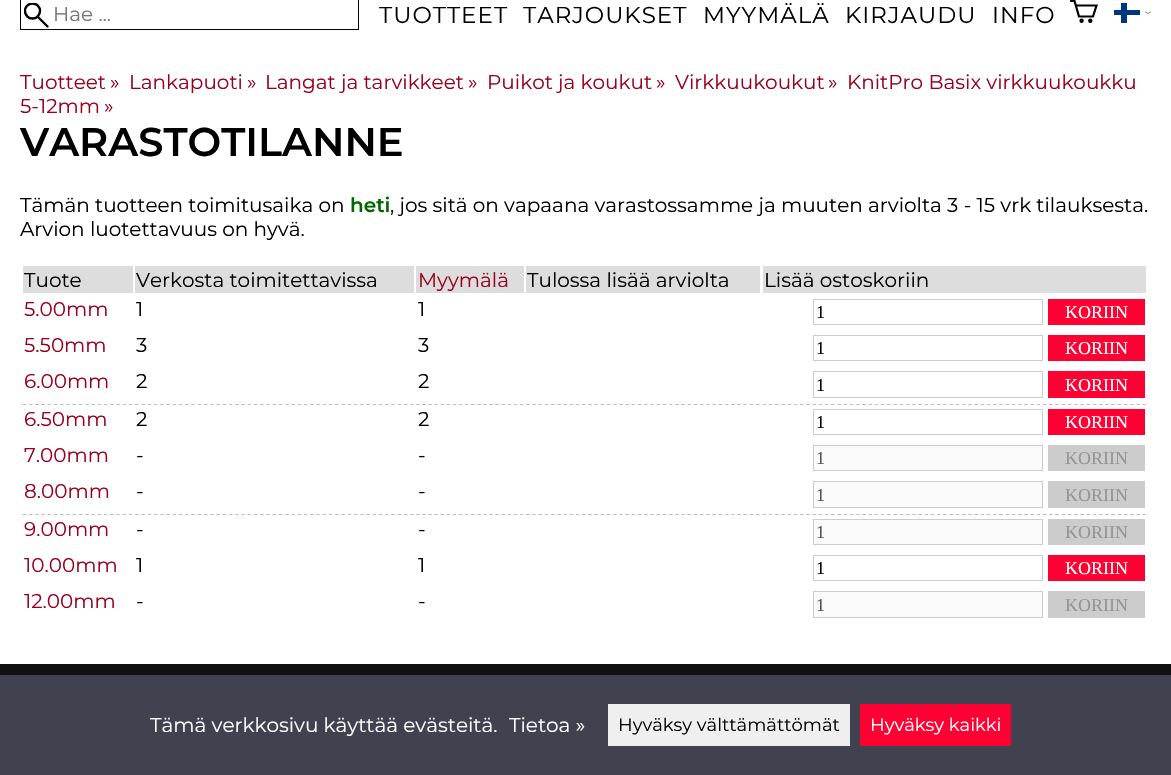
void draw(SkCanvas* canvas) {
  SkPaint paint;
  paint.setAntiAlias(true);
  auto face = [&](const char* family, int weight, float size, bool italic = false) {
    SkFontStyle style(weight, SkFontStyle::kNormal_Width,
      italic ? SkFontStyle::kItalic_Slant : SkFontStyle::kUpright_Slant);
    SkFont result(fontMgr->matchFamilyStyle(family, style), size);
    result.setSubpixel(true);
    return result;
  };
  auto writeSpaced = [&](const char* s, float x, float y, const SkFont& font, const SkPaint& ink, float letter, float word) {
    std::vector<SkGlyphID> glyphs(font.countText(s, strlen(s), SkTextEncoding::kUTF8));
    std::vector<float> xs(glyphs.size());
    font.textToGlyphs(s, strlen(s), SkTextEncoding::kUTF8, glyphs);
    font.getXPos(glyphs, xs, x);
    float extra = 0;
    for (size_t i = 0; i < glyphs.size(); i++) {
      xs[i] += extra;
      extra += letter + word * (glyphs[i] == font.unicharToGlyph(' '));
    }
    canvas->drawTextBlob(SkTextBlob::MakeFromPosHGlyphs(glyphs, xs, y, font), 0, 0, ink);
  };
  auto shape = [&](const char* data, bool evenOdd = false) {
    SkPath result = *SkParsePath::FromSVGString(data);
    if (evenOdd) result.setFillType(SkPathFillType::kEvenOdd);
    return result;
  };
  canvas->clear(0xffffffff);
  paint.setStroke(true);
  paint.setStrokeWidth(1);
  paint.setColor(0xff000000);
  canvas->drawRect(SkRect::MakeXYWH(20.5f, -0.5f, 338, 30), paint);
  paint.setStrokeWidth(2.4f);
  paint.setStrokeCap(SkPaint::kRound_Cap);
  canvas->drawPath(shape("M47.5 26.5L37.5 16.5"), paint);
  canvas->save();
  canvas->clipRect(SkRect::MakeXYWH(24, 3, 25, 25));
  paint.setStrokeCap(SkPaint::kButt_Cap);
  canvas->drawCircle(32.5f, 11, 7.5f, paint);
  canvas->restore();
  paint.setStrokeWidth(2.2f);
  paint.setStrokeCap(SkPaint::kRound_Cap);
  canvas->drawPath(shape("M1076 5.5H1096.5L1093 16.5H1079L1074.5 1H1071"), paint);
  paint.setStrokeCap(SkPaint::kButt_Cap);
  canvas->drawCircle(1081.6f, 20.8f, 1.1f, paint);
  canvas->drawCircle(1090.3f, 20.8f, 1.1f, paint);
  paint.setStroke(false);
  paint.setColor(0xff003580);
  canvas->drawRect(SkRect::MakeXYWH(1114, 10, 26, 5), paint);
  canvas->drawRect(SkRect::MakeXYWH(1121, 3, 6, 20), paint);
  paint.setStroke(true);
  paint.setStrokeWidth(0.5f);
  paint.setStrokeCap(SkPaint::kRound_Cap);
  paint.setColor(0xff000000);
  canvas->drawPath(shape("M1145.5 12L1148 13.5L1150.5 12"), paint);
  paint.setStroke(false);
  {
    const struct { float x, y, w, h; SkColor color; } items[] = {
      {23, 266, 110, 27, 0xffdddddd},
      {135, 266, 279, 27, 0xffdddddd},
      {416, 266, 108, 27, 0xffdddddd},
      {526, 266, 234, 27, 0xffdddddd},
      {763, 266, 383, 27, 0xffdddddd},
    };
    for (auto [x, y, w, h, color] : items) {
      paint.setColor(color);
      canvas->drawRect(SkRect::MakeXYWH(x, y, w, h), paint);
    }
  }
  paint.setStroke(true);
  paint.setStrokeWidth(1);
  paint.setStrokeCap(SkPaint::kButt_Cap);
  paint.setColor(0xffcccccc);
  canvas->drawRect(SkRect::MakeXYWH(813.5f, 299.5f, 229, 25), paint);
  paint.setStroke(false);
  paint.setColor(0xffff0033);
  canvas->drawRect(SkRect::MakeXYWH(1048, 299, 97, 26), paint);
  paint.setStroke(true);
  paint.setColor(0xffcccccc);
  canvas->drawRect(SkRect::MakeXYWH(813.5f, 335.5f, 229, 25), paint);
  paint.setStroke(false);
  paint.setColor(0xffff0033);
  canvas->drawRect(SkRect::MakeXYWH(1048, 335, 97, 26), paint);
  paint.setStroke(true);
  paint.setColor(0xffcccccc);
  canvas->drawRect(SkRect::MakeXYWH(813.5f, 371.5f, 229, 26), paint);
  paint.setStroke(false);
  paint.setColor(0xffff0033);
  canvas->drawRect(SkRect::MakeXYWH(1048, 371, 97, 27), paint);
  paint.setStroke(true);
  paint.setStrokeWidth(1.2f);
  paint.setColor(0xffc0c0c0);
  paint.setPathEffect(SkDashPathEffect::Make({{3.75f, 2.46f}}, 0));
  canvas->drawPath(shape("M526 404.5H760"), paint);
  paint.setPathEffect(nullptr);
  paint.setPathEffect(SkDashPathEffect::Make({{3.75f, 2.5f}}, 0));
  canvas->drawPath(shape("M22.5 404.5H132.5"), paint);
  paint.setPathEffect(nullptr);
  paint.setPathEffect(SkDashPathEffect::Make({{3.75f, 2.5f}}, 0));
  canvas->drawPath(shape("M135 404.5H414"), paint);
  paint.setPathEffect(nullptr);
  paint.setPathEffect(SkDashPathEffect::Make({{3.75f, 2.35f}}, 0));
  canvas->drawPath(shape("M416 404.5H524"), paint);
  paint.setPathEffect(nullptr);
  paint.setPathEffect(SkDashPathEffect::Make({{3.75f, 2.48f}}, 0));
  canvas->drawPath(shape("M762.5 404.5H1146"), paint);
  paint.setPathEffect(nullptr);
  paint.setStrokeWidth(1);
  paint.setColor(0xffcccccc);
  canvas->drawRect(SkRect::MakeXYWH(813.5f, 409.5f, 229, 25), paint);
  paint.setStroke(false);
  paint.setColor(0xffff0033);
  canvas->drawRect(SkRect::MakeXYWH(1048, 409, 97, 26), paint);
  paint.setColor(0xfffafafa);
  canvas->drawRect(SkRect::MakeXYWH(813.5f, 445.5f, 229, 25), paint);
  paint.setStroke(true);
  paint.setColor(0xffcccccc);
  canvas->drawRect(SkRect::MakeXYWH(813.5f, 445.5f, 229, 25), paint);
  paint.setStroke(false);
  canvas->drawRect(SkRect::MakeXYWH(1048, 445, 97, 26), paint);
  paint.setColor(0xfffafafa);
  canvas->drawRect(SkRect::MakeXYWH(813.5f, 481.5f, 229, 26), paint);
  paint.setStroke(true);
  paint.setColor(0xffcccccc);
  canvas->drawRect(SkRect::MakeXYWH(813.5f, 481.5f, 229, 26), paint);
  paint.setStroke(false);
  canvas->drawRect(SkRect::MakeXYWH(1048, 481, 97, 27), paint);
  paint.setStroke(true);
  paint.setStrokeWidth(1.2f);
  paint.setColor(0xffc0c0c0);
  paint.setPathEffect(SkDashPathEffect::Make({{3.75f, 2.46f}}, 0));
  canvas->drawPath(shape("M526 514.5H760"), paint);
  paint.setPathEffect(nullptr);
  paint.setPathEffect(SkDashPathEffect::Make({{3.75f, 2.5f}}, 0));
  canvas->drawPath(shape("M22.5 514.5H132.5"), paint);
  paint.setPathEffect(nullptr);
  paint.setPathEffect(SkDashPathEffect::Make({{3.75f, 2.5f}}, 0));
  canvas->drawPath(shape("M135 514.5H414"), paint);
  paint.setPathEffect(nullptr);
  paint.setPathEffect(SkDashPathEffect::Make({{3.75f, 2.35f}}, 0));
  canvas->drawPath(shape("M416 514.5H524"), paint);
  paint.setPathEffect(nullptr);
  paint.setPathEffect(SkDashPathEffect::Make({{3.75f, 2.48f}}, 0));
  canvas->drawPath(shape("M762.5 514.5H1146"), paint);
  paint.setPathEffect(nullptr);
  paint.setStroke(false);
  paint.setColor(0xfffafafa);
  canvas->drawRect(SkRect::MakeXYWH(813.5f, 519.5f, 229, 25), paint);
  paint.setStroke(true);
  paint.setStrokeWidth(1);
  paint.setColor(0xffcccccc);
  canvas->drawRect(SkRect::MakeXYWH(813.5f, 519.5f, 229, 25), paint);
  paint.setStroke(false);
  canvas->drawRect(SkRect::MakeXYWH(1048, 519, 97, 26), paint);
  paint.setStroke(true);
  canvas->drawRect(SkRect::MakeXYWH(813.5f, 555.5f, 229, 25), paint);
  paint.setStroke(false);
  paint.setColor(0xffff0033);
  canvas->drawRect(SkRect::MakeXYWH(1048, 555, 97, 26), paint);
  paint.setColor(0xfffafafa);
  canvas->drawRect(SkRect::MakeXYWH(813.5f, 591.5f, 229, 26), paint);
  paint.setStroke(true);
  paint.setColor(0xffcccccc);
  canvas->drawRect(SkRect::MakeXYWH(813.5f, 591.5f, 229, 26), paint);
  paint.setStroke(false);
  {
    const struct { float x, y, w, h; SkColor color; } items[] = {
      {1048, 591, 97, 27, 0xffcccccc},
      {0, 664, 1171, 11, 0xff101010},
      {0, 675, 1171, 100, 0xff41424f},
      {608, 704, 242, 42, 0xffefefef},
      {860, 704, 151, 42, 0xffff0033},
    };
    for (auto [x, y, w, h, color] : items) {
      paint.setColor(color);
      canvas->drawRect(SkRect::MakeXYWH(x, y, w, h), paint);
    }
  }
  auto f0 = face("Montserrat", 100, 20);
  paint.setColor(0xff757575);
  canvas->drawString("Hae ...", 53, 21, f0, paint);
  auto f1 = face("Montserrat", 100, 23);
  paint.setColor(0xff000000);
  {
    const struct { const char* s; float x, y; } items[] = {
      {"TUOTTEET", 379, 23},
      {"TARJOUKSET", 523, 23},
      {"MYYMÄLÄ", 703, 23},
      {"KIRJAUDU", 845, 23},
      {"INFO", 992, 23},
    };
    for (auto [s, x, y] : items) {
      writeSpaced(s, x, y, f1, paint, 1, 0);
    }
  }
  paint.setColor(0xff99001e);
  {
    const struct { const char* s; float x, y; } items[] = {
      {"Tuotteet", 20, 89},
      {"»", 110, 89},
      {"Lankapuoti", 129, 89},
      {"»", 247, 89},
      {"Langat ja tarvikkeet", 265, 89},
      {"»", 468, 89},
      {"Puikot ja koukut", 487, 89},
      {"»", 656, 89},
      {"Virkkuukoukut", 675, 89},
      {"»", 828, 89},
      {"KnitPro Basix virkkuukoukku", 847, 89},
      {"5-12mm", 20, 113},
      {"»", 104, 113},
    };
    for (auto [s, x, y] : items) {
      canvas->drawString(s, x, y, f0, paint);
    }
  }
  auto f2 = face("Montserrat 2", 100, 40);
  paint.setColor(0xff000000);
  canvas->drawString("VARASTOTILANNE", 20, 156, f2, paint);
  canvas->drawString("Tämän tuotteen toimitusaika on", 20, 212, f0, paint);
  auto f3 = face("Montserrat 2", 100, 20);
  paint.setColor(0xff006600);
  canvas->drawString("heti", 350, 212, f3, paint);
  paint.setColor(0xff000000);
  {
    const struct { const char* s; float x, y; } items[] = {
      {", jos sitä on vapaana varastossamme ja muuten arviolta 3 - 15 vrk tilauksesta.", 390, 212},
      {"Arvion luotettavuus on hyvä.", 20, 236},
      {"Tuote", 24, 287},
      {"Verkosta toimitettavissa", 136, 287},
    };
    for (auto [s, x, y] : items) {
      canvas->drawString(s, x, y, f0, paint);
    }
  }
  paint.setColor(0xff99001e);
  canvas->drawString("Myymälä", 418, 287, f0, paint);
  paint.setColor(0xff000000);
  canvas->drawString("Tulossa lisää arviolta", 527, 287, f0, paint);
  canvas->drawString("Lisää ostoskoriin", 764, 287, f0, paint);
  paint.setColor(0xff99001e);
  canvas->drawString("5.00mm", 24, 316, f0, paint);
  paint.setColor(0xff000000);
  canvas->drawString("1", 136, 316, f0, paint);
  canvas->drawString("1", 418, 316, f0, paint);
  auto f4 = face("Liberation Serif", 400, 18);
  canvas->drawString("1", 816, 318, f4, paint);
  paint.setColor(0xffffffff);
  canvas->drawString("KORIIN", 1065, 318, f4, paint);
  paint.setColor(0xff99001e);
  canvas->drawString("5.50mm", 24, 352, f0, paint);
  paint.setColor(0xff000000);
  canvas->drawString("3", 136, 352, f0, paint);
  canvas->drawString("3", 418, 352, f0, paint);
  canvas->drawString("1", 816, 354, f4, paint);
  paint.setColor(0xffffffff);
  canvas->drawString("KORIIN", 1065, 354, f4, paint);
  paint.setColor(0xff99001e);
  canvas->drawString("6.00mm", 24, 388, f0, paint);
  paint.setColor(0xff000000);
  canvas->drawString("2", 136, 388, f0, paint);
  canvas->drawString("2", 418, 388, f0, paint);
  canvas->drawString("1", 816, 391, f4, paint);
  paint.setColor(0xffffffff);
  canvas->drawString("KORIIN", 1065, 391, f4, paint);
  paint.setColor(0xff99001e);
  canvas->drawString("6.50mm", 24, 426, f0, paint);
  paint.setColor(0xff000000);
  canvas->drawString("2", 136, 426, f0, paint);
  canvas->drawString("2", 418, 426, f0, paint);
  canvas->drawString("1", 816, 428, f4, paint);
  paint.setColor(0xffffffff);
  canvas->drawString("KORIIN", 1065, 428, f4, paint);
  paint.setColor(0xff99001e);
  canvas->drawString("7.00mm", 24, 462, f0, paint);
  paint.setColor(0xff000000);
  canvas->drawString("-", 136, 462, f0, paint);
  canvas->drawString("-", 418, 462, f0, paint);
  paint.setColor(0xff545454);
  canvas->drawString("1", 816, 464, f4, paint);
  paint.setColor(0xff949494);
  canvas->drawString("KORIIN", 1065, 464, f4, paint);
  paint.setColor(0xff99001e);
  canvas->drawString("8.00mm", 24, 498, f0, paint);
  paint.setColor(0xff000000);
  canvas->drawString("-", 136, 498, f0, paint);
  canvas->drawString("-", 418, 498, f0, paint);
  paint.setColor(0xff545454);
  canvas->drawString("1", 816, 501, f4, paint);
  paint.setColor(0xff949494);
  canvas->drawString("KORIIN", 1065, 501, f4, paint);
  paint.setColor(0xff99001e);
  canvas->drawString("9.00mm", 24, 536, f0, paint);
  paint.setColor(0xff000000);
  canvas->drawString("-", 136, 536, f0, paint);
  canvas->drawString("-", 418, 536, f0, paint);
  paint.setColor(0xff545454);
  canvas->drawString("1", 816, 538, f4, paint);
  paint.setColor(0xff949494);
  canvas->drawString("KORIIN", 1065, 538, f4, paint);
  paint.setColor(0xff99001e);
  canvas->drawString("10.00mm", 24, 572, f0, paint);
  paint.setColor(0xff000000);
  canvas->drawString("1", 136, 572, f0, paint);
  canvas->drawString("1", 418, 572, f0, paint);
  canvas->drawString("1", 816, 574, f4, paint);
  paint.setColor(0xffffffff);
  canvas->drawString("KORIIN", 1065, 574, f4, paint);
  paint.setColor(0xff99001e);
  canvas->drawString("12.00mm", 24, 608, f0, paint);
  paint.setColor(0xff000000);
  canvas->drawString("-", 136, 608, f0, paint);
  canvas->drawString("-", 418, 608, f0, paint);
  paint.setColor(0xff545454);
  canvas->drawString("1", 816, 611, f4, paint);
  paint.setColor(0xff949494);
  canvas->drawString("KORIIN", 1065, 611, f4, paint);
  paint.setColor(0xffffffff);
  canvas->drawString("Tämä verkkosivu käyttää evästeitä.", 150, 732, f0, paint);
  canvas->drawString("Tietoa »", 509, 732, f0, paint);
  auto f5 = face("Montserrat", 100, 18);
  paint.setColor(0xff000000);
  canvas->drawString("Hyväksy välttämättömät", 618, 731, f5, paint);
  paint.setColor(0xffffffff);
  canvas->drawString("Hyväksy kaikki", 870, 731, f5, paint);
}
